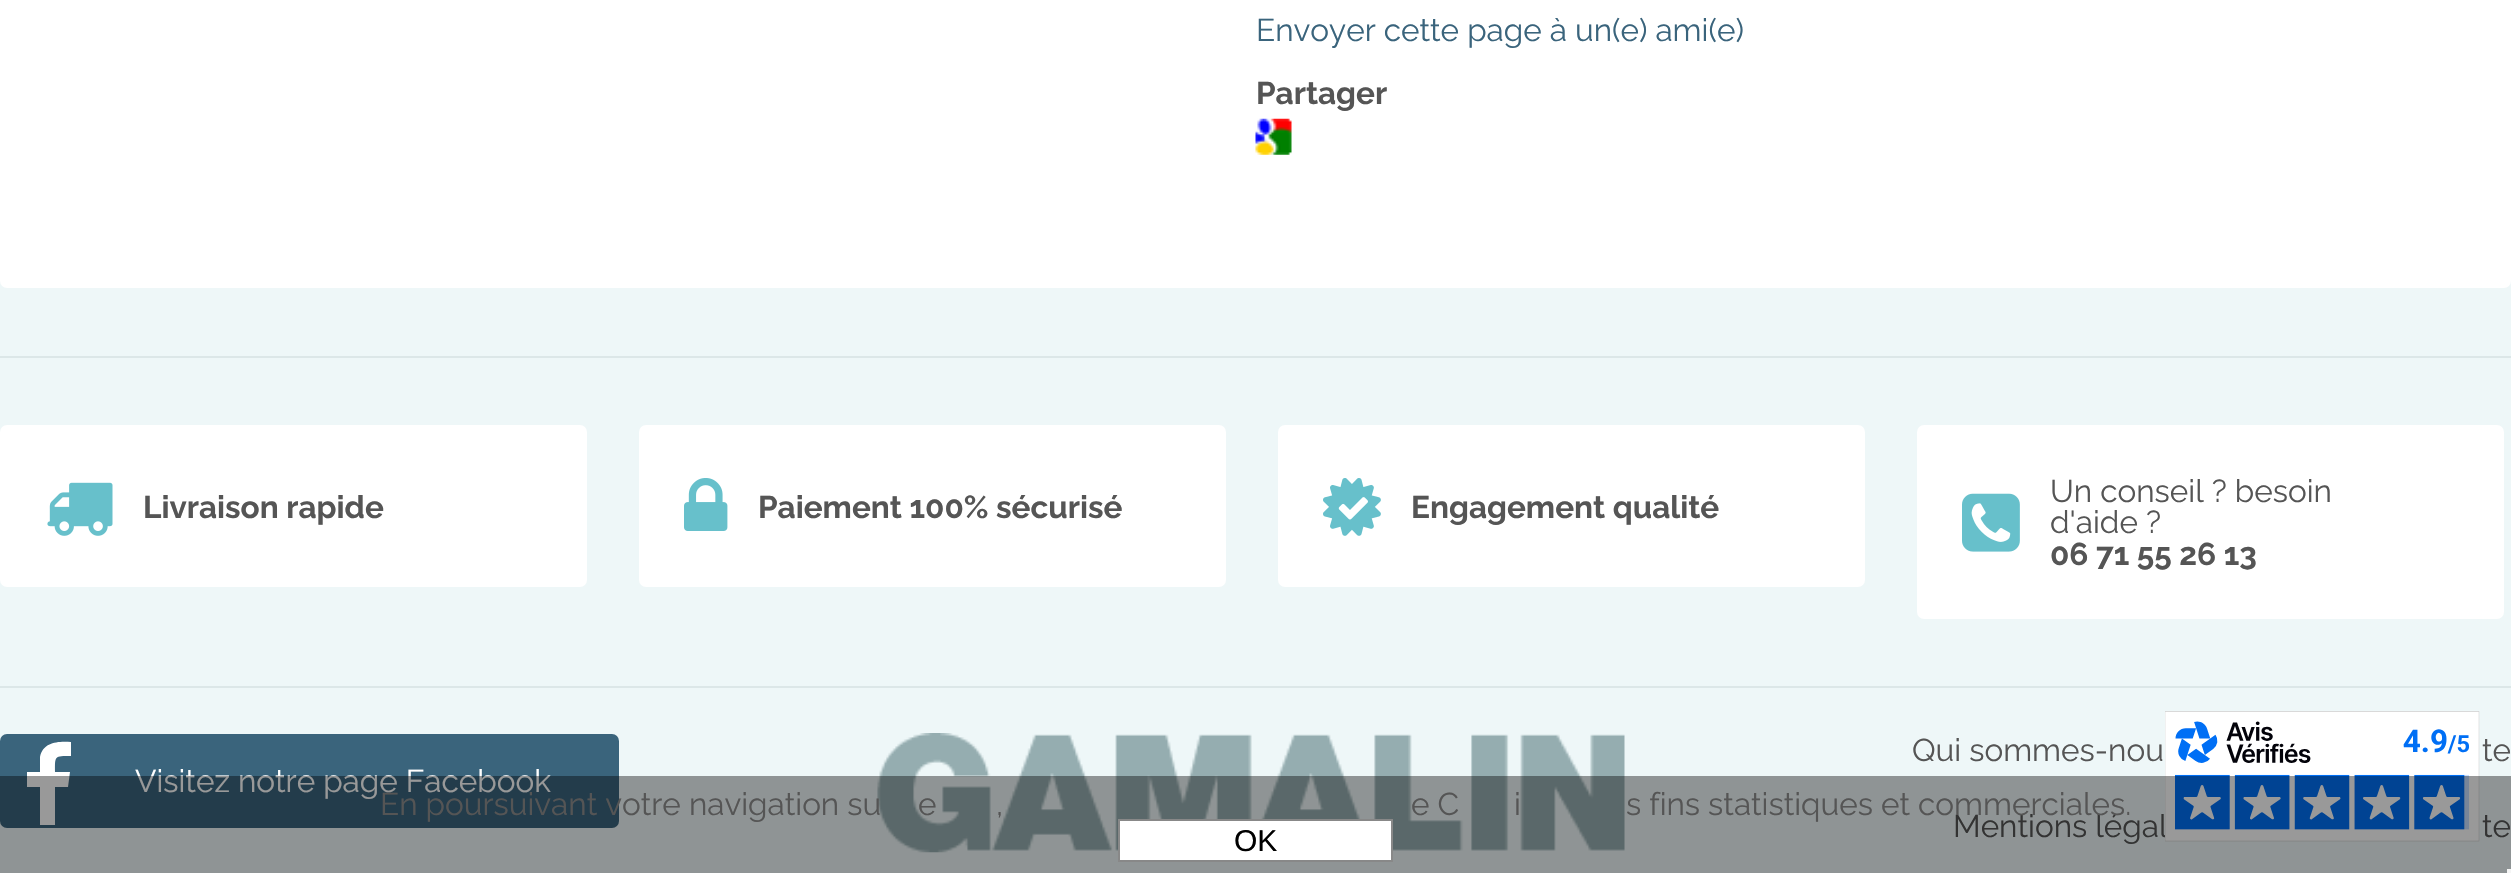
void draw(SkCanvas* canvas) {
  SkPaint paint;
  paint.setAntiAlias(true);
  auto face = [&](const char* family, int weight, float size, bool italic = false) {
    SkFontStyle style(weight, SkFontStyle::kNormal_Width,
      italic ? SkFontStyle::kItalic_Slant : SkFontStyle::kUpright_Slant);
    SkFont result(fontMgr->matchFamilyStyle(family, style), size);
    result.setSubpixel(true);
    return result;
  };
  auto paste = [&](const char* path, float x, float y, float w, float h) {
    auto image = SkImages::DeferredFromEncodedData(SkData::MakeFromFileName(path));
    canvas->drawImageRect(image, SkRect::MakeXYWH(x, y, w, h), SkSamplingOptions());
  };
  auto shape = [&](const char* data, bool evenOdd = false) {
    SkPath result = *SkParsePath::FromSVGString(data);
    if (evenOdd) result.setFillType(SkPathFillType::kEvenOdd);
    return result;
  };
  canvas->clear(0xffeef7f8);
  paint.setColor(0xffffffff);
  canvas->drawRoundRect(SkRect::MakeXYWH(0, -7, 2511, 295), 7, 7, paint);
  paste("img/1.png", 1255, 118, 37, 37);
  paint.setColor(0xffdce7e8);
  canvas->drawRect(SkRect::MakeXYWH(0, 356, 2511, 2), paint);
  canvas->drawRect(SkRect::MakeXYWH(0, 686, 2511, 2), paint);
  paint.setColor(0xffffffff);
  canvas->drawRoundRect(SkRect::MakeXYWH(0, 425, 587, 162), 7, 7, paint);
  paste("img/2.png", 47, 482, 66, 54);
  canvas->drawRoundRect(SkRect::MakeXYWH(639, 425, 587, 162), 7, 7, paint);
  paste("img/3.png", 684, 478, 44, 53);
  canvas->drawRoundRect(SkRect::MakeXYWH(1278, 425, 587, 162), 7, 7, paint);
  paste("img/4.png", 1323, 478, 58, 58);
  paste("img/5.png", 1338, 497, 30, 23);
  canvas->drawRoundRect(SkRect::MakeXYWH(1917, 425, 587, 194), 7, 7, paint);
  paste("img/6.png", 1962, 493, 58, 59);
  paint.setColor(0xff3a647c);
  canvas->drawRoundRect(SkRect::MakeXYWH(0, 734, 619, 94), 7, 7, paint);
  paint.setColor(0xffffffff);
  canvas->drawPath(shape("M71 742V756C54 756 55 756 55 772H70L68 787H55V825H40V787H27V772H40V757C43 742 58 741 71 742Z"), paint);
  paste("img/8.png", 877, 733, 748, 120);
  auto f0 = face("Raleway", 400, 31.5f);
  paint.setColor(0xff3a647c);
  canvas->drawString("Envoyer cette page à un(e) ami(e)", 1256, 41, f0, paint);
  auto f1 = face("Raleway", 700, 31.5f);
  paint.setColor(0xff555555);
  {
    const struct { const char* s; float x, y; } items[] = {
      {"Partager", 1256, 104},
      {"Livraison rapide", 143, 518},
      {"Paiement 100% sécurisé", 758, 518},
      {"Engagement qualité", 1411, 518},
    };
    for (auto [s, x, y] : items) {
      canvas->drawString(s, x, y, f1, paint);
    }
  }
  canvas->drawString("Un conseil ? besoin", 2050, 502, f0, paint);
  canvas->drawString("d'aide ?", 2050, 533, f0, paint);
  canvas->drawString("06 71 55 26 13", 2050, 565, f1, paint);
  paint.setColor(0xffffffff);
  canvas->drawString("Visitez notre page Facebook", 135, 792, f0, paint);
  paint.setColor(0xff555555);
  {
    const struct { const char* s; float x, y; } items[] = {
      {"Qui sommes-nou", 1912, 761},
      {"te", 2482, 761},
      {"Mentions légal", 1953, 837},
    };
    for (auto [s, x, y] : items) {
      canvas->drawString(s, x, y, f0, paint);
    }
  }
  paste("img/7.png", 2165, 711, 315, 131);
  canvas->drawString("te", 2482, 837, f0, paint);
  paint.setColor(0x66000000);
  canvas->drawRect(SkRect::MakeXYWH(0, 776, 2511, 97), paint);
  paint.setColor(0xff555555);
  {
    const struct { const char* s; float x, y; } items[] = {
      {"En poursuivant votre navigation su", 380, 815},
      {"e", 918, 815},
      {",", 996, 815},
      {"e C", 1411, 815},
      {"i", 1514, 815},
      {"s fins statistiques et commerciales.", 1626, 815},
    };
    for (auto [s, x, y] : items) {
      canvas->drawString(s, x, y, f0, paint);
    }
  }
  paint.setColor(0xffffffff);
  canvas->drawRect(SkRect::MakeXYWH(1119, 820, 273, 41), paint);
  paint.setStroke(true);
  paint.setStrokeWidth(2);
  paint.setColor(0xff888888);
  canvas->drawRect(SkRect::MakeXYWH(1119, 820, 273, 41), paint);
  auto f2 = face("Liberation Sans", 400, 30);
  paint.setStroke(false);
  paint.setColor(0xff000000);
  canvas->drawString("OK", 1234, 851, f2, paint);
  paint.setColor(0xfff5f5f5);
  canvas->drawRect(SkRect::MakeXYWH(2507, 869, 4, 4), paint);
}
